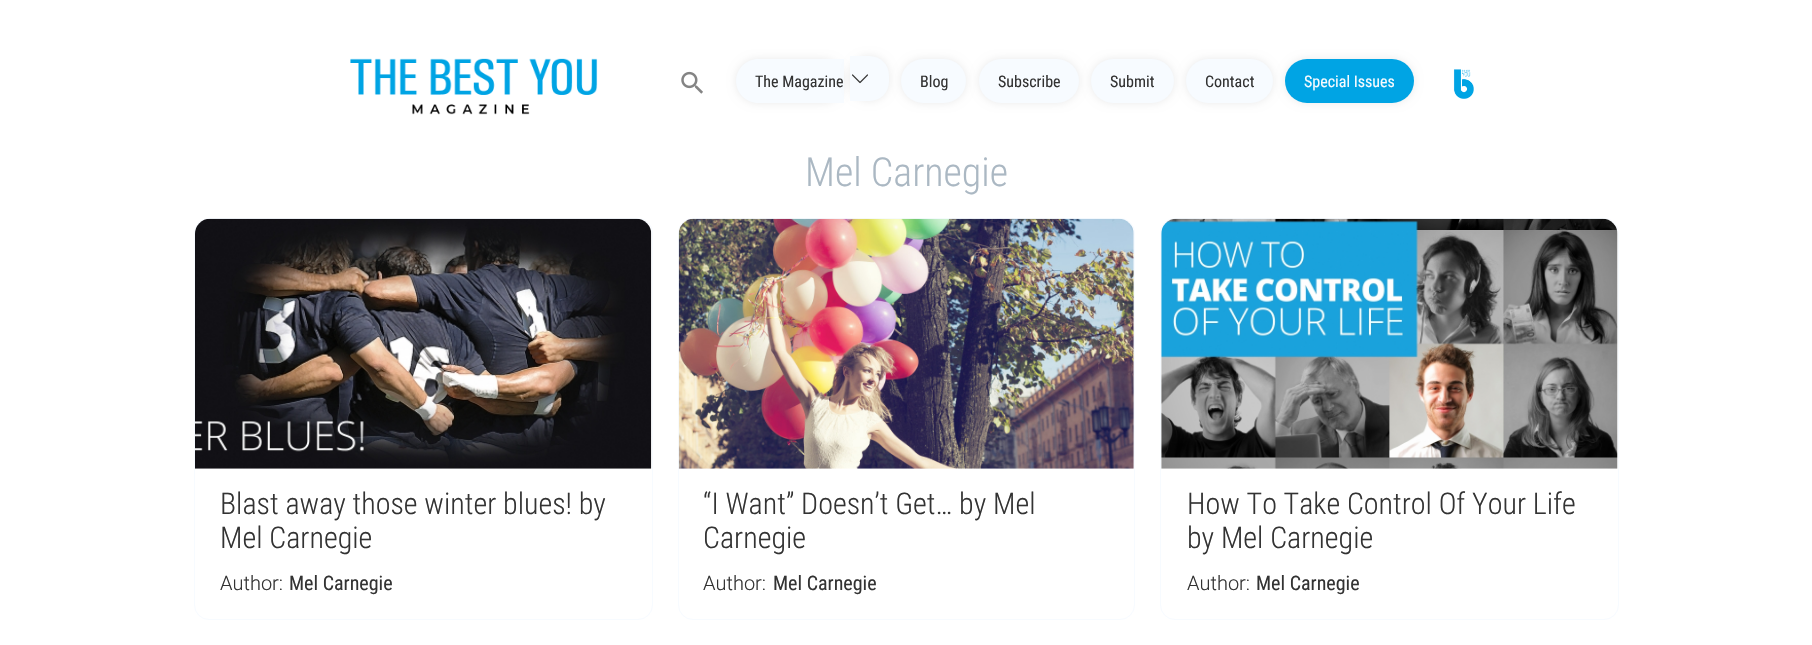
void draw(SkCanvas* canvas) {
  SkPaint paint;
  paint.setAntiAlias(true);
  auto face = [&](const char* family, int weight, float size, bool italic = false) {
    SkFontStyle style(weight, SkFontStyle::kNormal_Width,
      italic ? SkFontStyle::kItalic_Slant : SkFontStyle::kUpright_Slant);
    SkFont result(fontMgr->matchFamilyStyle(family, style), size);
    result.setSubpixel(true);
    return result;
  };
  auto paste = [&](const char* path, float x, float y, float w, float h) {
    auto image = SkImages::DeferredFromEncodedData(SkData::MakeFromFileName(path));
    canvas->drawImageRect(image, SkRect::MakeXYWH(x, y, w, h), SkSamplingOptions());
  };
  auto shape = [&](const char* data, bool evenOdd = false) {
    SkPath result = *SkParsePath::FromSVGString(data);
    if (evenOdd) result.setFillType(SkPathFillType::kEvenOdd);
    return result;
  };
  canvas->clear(0xffffffff);
  paste("img/1.png", 350, 58, 248, 57);
  paste("img/2.png", 681, 71, 22, 23);
  paint.setColor(0xffeaeaea);
  paint.setMaskFilter(SkMaskFilter::MakeBlur(kNormal_SkBlurStyle, 4));
  canvas->drawRoundRect(SkRect::MakeXYWH(736, 59, 108, 44), 22, 22, paint);
  paint.setMaskFilter(nullptr);
  paint.setColor(0xfff7fbff);
  canvas->drawPath(shape("M758 59H844V103H758C746 103 736 93 736 81C736 69 746 59 758 59Z"), paint);
  paint.setColor(0xffeaeaea);
  paint.setMaskFilter(SkMaskFilter::MakeBlur(kNormal_SkBlurStyle, 4));
  canvas->drawRoundRect(SkRect::MakeXYWH(850, 56, 39, 45), 19.5f, 19.5f, paint);
  paint.setMaskFilter(nullptr);
  paint.setColor(0xfff7fbff);
  canvas->drawPath(shape("M850 56H869.5C880.5 56 889 64.5 889 75.5V81.5C889 92.5 880.5 101 869.5 101H850Z"), paint);
  paste("img/3.png", 852, 74, 16, 10);
  paint.setColor(0xffeaeaea);
  paint.setMaskFilter(SkMaskFilter::MakeBlur(kNormal_SkBlurStyle, 4));
  canvas->drawRoundRect(SkRect::MakeXYWH(901, 59, 65, 44), 22, 22, paint);
  paint.setMaskFilter(nullptr);
  paint.setColor(0xfff7fbff);
  canvas->drawRoundRect(SkRect::MakeXYWH(901, 59, 65, 44), 22, 22, paint);
  paint.setColor(0xffeaeaea);
  paint.setMaskFilter(SkMaskFilter::MakeBlur(kNormal_SkBlurStyle, 4));
  canvas->drawRoundRect(SkRect::MakeXYWH(979, 59, 100, 44), 22, 22, paint);
  paint.setMaskFilter(nullptr);
  paint.setColor(0xfff7fbff);
  canvas->drawRoundRect(SkRect::MakeXYWH(979, 59, 100, 44), 22, 22, paint);
  paint.setColor(0xffeaeaea);
  paint.setMaskFilter(SkMaskFilter::MakeBlur(kNormal_SkBlurStyle, 4));
  canvas->drawRoundRect(SkRect::MakeXYWH(1091, 59, 83, 44), 22, 22, paint);
  paint.setMaskFilter(nullptr);
  paint.setColor(0xfff7fbff);
  canvas->drawRoundRect(SkRect::MakeXYWH(1091, 59, 83, 44), 22, 22, paint);
  paint.setColor(0xffeaeaea);
  paint.setMaskFilter(SkMaskFilter::MakeBlur(kNormal_SkBlurStyle, 4));
  canvas->drawRoundRect(SkRect::MakeXYWH(1186, 59, 87, 44), 22, 22, paint);
  paint.setMaskFilter(nullptr);
  paint.setColor(0xfff7fbff);
  canvas->drawRoundRect(SkRect::MakeXYWH(1186, 59, 87, 44), 22, 22, paint);
  paint.setColor(0xffeaeaea);
  paint.setMaskFilter(SkMaskFilter::MakeBlur(kNormal_SkBlurStyle, 4));
  canvas->drawRoundRect(SkRect::MakeXYWH(1285, 59, 129, 44), 22, 22, paint);
  paint.setMaskFilter(nullptr);
  paint.setColor(0xff00a4e4);
  canvas->drawRoundRect(SkRect::MakeXYWH(1285, 59, 129, 44), 22, 22, paint);
  paste("img/4.png", 1453, 69, 21, 30);
  paint.setStroke(true);
  paint.setStrokeWidth(1);
  paint.setColor(0xfff7fbff);
  canvas->drawRoundRect(SkRect::MakeXYWH(194.5f, 218.5f, 458, 401), 14.5f, 14.5f, paint);
  paste("img/5.png", 195, 218, 457, 251);
  canvas->drawRoundRect(SkRect::MakeXYWH(678.5f, 218.5f, 456, 401), 14.5f, 14.5f, paint);
  paste("img/6.png", 678, 218, 456, 251);
  canvas->drawRoundRect(SkRect::MakeXYWH(1160.5f, 218.5f, 458, 401), 14.5f, 14.5f, paint);
  paste("img/7.png", 1161, 218, 457, 251);
  auto f0 = face("Roboto Condensed", 400, 16);
  paint.setStroke(false);
  paint.setColor(0xff333333);
  {
    const struct { const char* s; float x, y; } items[] = {
      {"The Magazine", 755, 87},
      {"Blog", 920, 87},
      {"Subscribe", 998, 87},
      {"Submit", 1110, 87},
      {"Contact", 1205, 87},
    };
    for (auto [s, x, y] : items) {
      canvas->drawString(s, x, y, f0, paint);
    }
  }
  paint.setColor(0xfff7fbff);
  canvas->drawString("Special Issues", 1304, 87, f0, paint);
  auto f1 = face("Roboto Condensed", 300, 40);
  paint.setColor(0xffabb8c3);
  canvas->drawString("Mel Carnegie", 805, 186, f1, paint);
  auto f2 = face("Roboto Condensed", 300, 30);
  paint.setColor(0xff333333);
  canvas->drawString("Blast away those winter blues! by", 220, 514, f2, paint);
  canvas->drawString("Mel Carnegie", 220, 548, f2, paint);
  auto f3 = face("Roboto", 300, 20);
  canvas->drawString("Author:", 220, 590, f3, paint);
  auto f4 = face("Roboto Condensed", 400, 20);
  canvas->drawString("Mel Carnegie", 289, 590, f4, paint);
  canvas->drawString("“I Want” Doesn’t Get… by Mel", 703, 514, f2, paint);
  canvas->drawString("Carnegie", 703, 548, f2, paint);
  canvas->drawString("Author:", 703, 590, f3, paint);
  canvas->drawString("Mel Carnegie", 773, 590, f4, paint);
  canvas->drawString("How To Take Control Of Your Life", 1187, 514, f2, paint);
  canvas->drawString("by Mel Carnegie", 1187, 548, f2, paint);
  canvas->drawString("Author:", 1187, 590, f3, paint);
  canvas->drawString("Mel Carnegie", 1256, 590, f4, paint);
}
